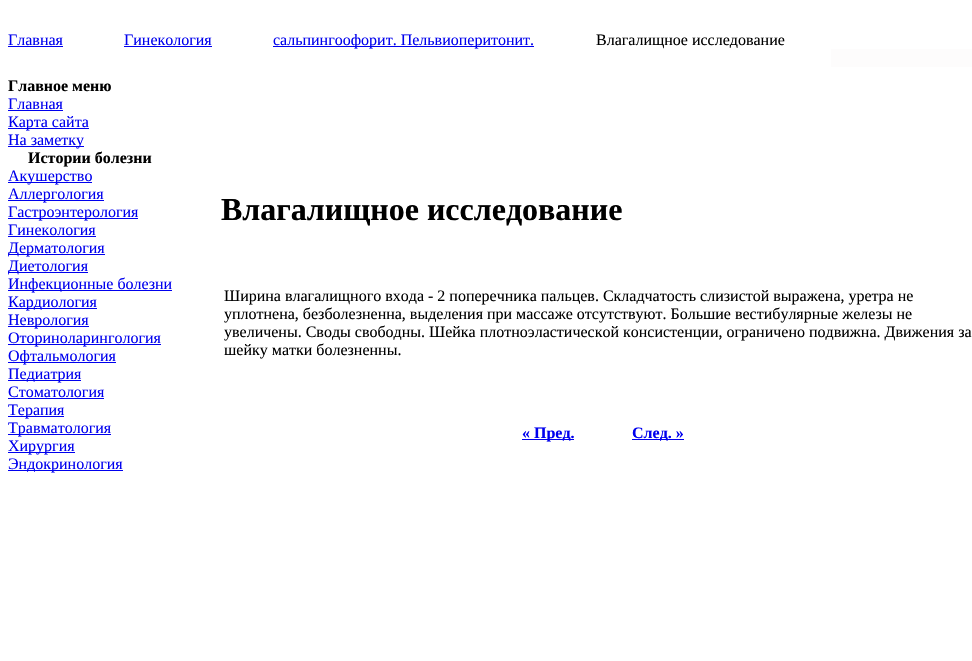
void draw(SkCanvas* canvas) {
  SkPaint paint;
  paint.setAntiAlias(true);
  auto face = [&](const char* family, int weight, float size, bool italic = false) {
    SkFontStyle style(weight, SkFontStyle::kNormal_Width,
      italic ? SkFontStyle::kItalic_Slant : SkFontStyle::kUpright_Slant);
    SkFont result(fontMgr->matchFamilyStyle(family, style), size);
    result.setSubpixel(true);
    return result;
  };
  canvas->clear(0xffffffff);
  {
    const struct { float x, y, w, h; SkColor color; } items[] = {
      {8, 46, 55, 1, 0xff0000ee},
      {124, 46, 88, 1, 0xff0000ee},
      {273, 46, 261, 1, 0xff0000ee},
      {831, 49, 141, 18, 0xfffdfcfc},
      {8, 110, 55, 1, 0xff0000ee},
      {8, 128, 81, 1, 0xff0000ee},
      {8, 146, 76, 1, 0xff0000ee},
      {8, 182, 84, 1, 0xff0000ee},
      {8, 200, 96, 1, 0xff0000ee},
      {8, 218, 130, 1, 0xff0000ee},
      {8, 236, 88, 1, 0xff0000ee},
      {8, 254, 97, 1, 0xff0000ee},
      {8, 272, 80, 1, 0xff0000ee},
      {8, 290, 164, 1, 0xff0000ee},
      {8, 308, 89, 1, 0xff0000ee},
      {8, 326, 81, 1, 0xff0000ee},
      {8, 344, 153, 1, 0xff0000ee},
      {8, 362, 108, 1, 0xff0000ee},
      {8, 380, 73, 1, 0xff0000ee},
      {8, 398, 96, 1, 0xff0000ee},
      {8, 416, 56, 1, 0xff0000ee},
      {8, 434, 103, 1, 0xff0000ee},
      {8, 452, 67, 1, 0xff0000ee},
      {8, 470, 115, 1, 0xff0000ee},
      {522, 439, 52, 1, 0xff0000ee},
      {632, 439, 52, 1, 0xff0000ee},
    };
    for (auto [x, y, w, h, color] : items) {
      paint.setColor(color);
      canvas->drawRect(SkRect::MakeXYWH(x, y, w, h), paint);
    }
  }
  auto f0 = face("Liberation Serif", 400, 16);
  {
    const struct { const char* s; float x, y; } items[] = {
      {"Главная", 8, 45},
      {"Гинекология", 124, 45},
      {"сальпингоофорит. Пельвиоперитонит.", 273, 45},
    };
    for (auto [s, x, y] : items) {
      canvas->drawString(s, x, y, f0, paint);
    }
  }
  paint.setColor(0xff000000);
  canvas->drawString("Влагалищное исследование", 596, 45, f0, paint);
  auto f1 = face("Liberation Serif", 700, 16);
  canvas->drawString("Главное меню", 8, 91, f1, paint);
  paint.setColor(0xff0000ee);
  {
    const struct { const char* s; float x, y; } items[] = {
      {"Главная", 8, 109},
      {"Карта сайта", 8, 127},
      {"На заметку", 8, 145},
    };
    for (auto [s, x, y] : items) {
      canvas->drawString(s, x, y, f0, paint);
    }
  }
  paint.setColor(0xff000000);
  canvas->drawString("Истории болезни", 28, 163, f1, paint);
  paint.setColor(0xff0000ee);
  {
    const struct { const char* s; float x, y; } items[] = {
      {"Акушерство", 8, 181},
      {"Аллергология", 8, 199},
      {"Гастроэнтерология", 8, 217},
      {"Гинекология", 8, 235},
      {"Дерматология", 8, 253},
      {"Диетология", 8, 271},
      {"Инфекционные болезни", 8, 289},
      {"Кардиология", 8, 307},
      {"Неврология", 8, 325},
      {"Оториноларингология", 8, 343},
      {"Офтальмология", 8, 361},
      {"Педиатрия", 8, 379},
      {"Стоматология", 8, 397},
      {"Терапия", 8, 415},
      {"Травматология", 8, 433},
      {"Хирургия", 8, 451},
      {"Эндокринология", 8, 469},
    };
    for (auto [s, x, y] : items) {
      canvas->drawString(s, x, y, f0, paint);
    }
  }
  auto f2 = face("Liberation Serif", 700, 32);
  paint.setColor(0xff000000);
  canvas->drawString("Влагалищное исследование", 221, 220, f2, paint);
  {
    const struct { const char* s; float x, y; } items[] = {
      {"Ширина влагалищного входа - 2 поперечника пальцев. Складчатость слизистой выражена, уретра не", 224, 301},
      {"уплотнена, безболезненна, выделения при массаже отсутствуют. Большие вестибулярные железы не", 224, 319},
      {"увеличены. Своды свободны. Шейка плотноэластической консистенции, ограничено подвижна. Движения за", 224, 337},
      {"шейку матки болезненны.", 224, 355},
    };
    for (auto [s, x, y] : items) {
      canvas->drawString(s, x, y, f0, paint);
    }
  }
  paint.setColor(0xff0000ee);
  canvas->drawString("« Пред.", 522, 438, f1, paint);
  canvas->drawString("След. »", 632, 438, f1, paint);
}
